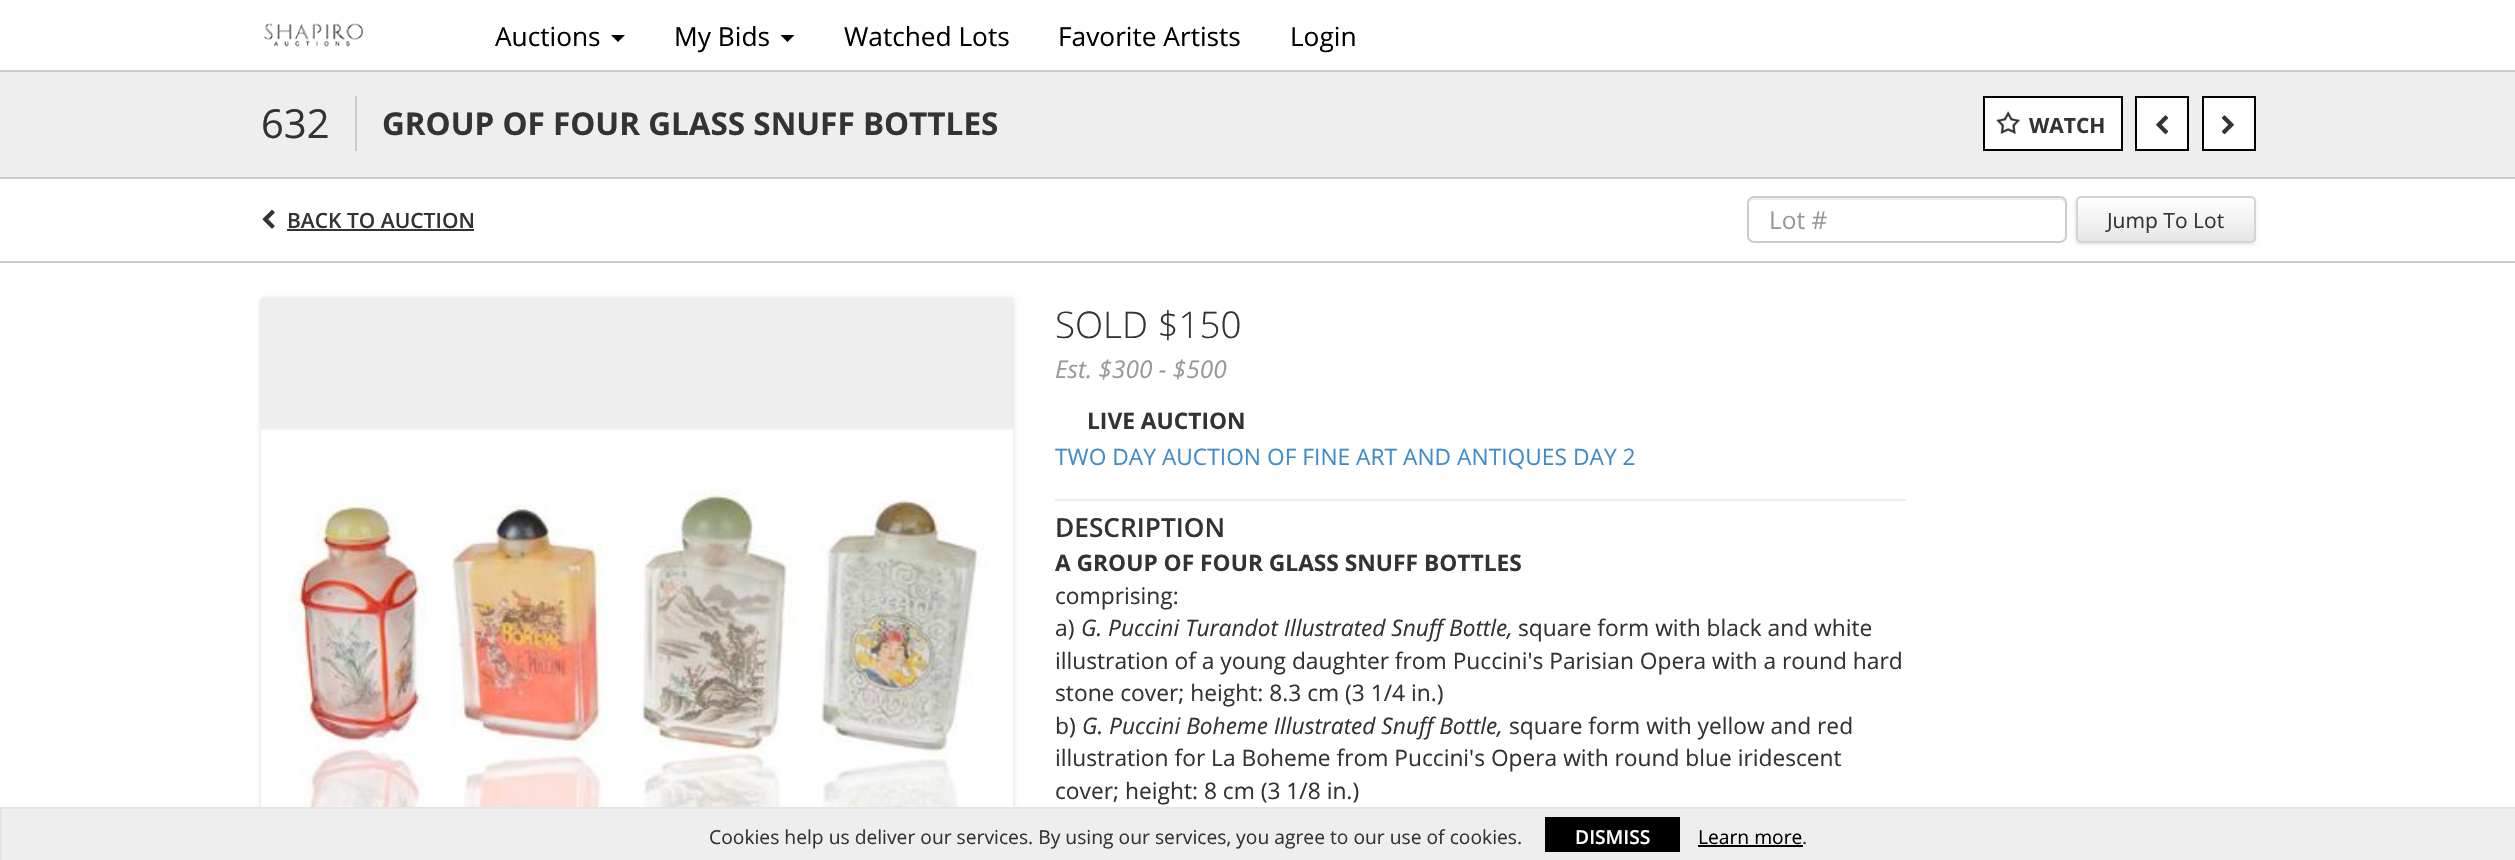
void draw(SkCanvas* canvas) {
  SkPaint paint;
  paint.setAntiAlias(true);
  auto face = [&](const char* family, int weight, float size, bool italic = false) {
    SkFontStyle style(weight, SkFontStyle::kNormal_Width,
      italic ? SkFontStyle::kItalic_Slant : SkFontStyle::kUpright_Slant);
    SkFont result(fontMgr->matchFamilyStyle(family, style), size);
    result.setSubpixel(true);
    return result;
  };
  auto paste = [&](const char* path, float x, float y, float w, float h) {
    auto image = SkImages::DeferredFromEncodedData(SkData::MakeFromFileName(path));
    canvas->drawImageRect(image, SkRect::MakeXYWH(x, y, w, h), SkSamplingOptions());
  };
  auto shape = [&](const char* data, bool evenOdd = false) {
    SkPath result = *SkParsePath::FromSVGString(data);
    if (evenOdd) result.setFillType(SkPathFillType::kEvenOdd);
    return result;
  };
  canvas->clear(0xffffffff);
  paste("img/1.png", 264, 23, 100, 24);
  paint.setColor(0xff000000);
  canvas->drawPath(shape("M611 35H625L618 42Z"), paint);
  canvas->drawPath(shape("M780.5 35H794.5L787.5 42Z"), paint);
  {
    const struct { float x, y, w, h; SkColor color; } items[] = {
      {0, 70, 2515, 2, 0xffcccccc},
      {0, 72, 2515, 105, 0xffeeeeee},
      {0, 177, 2515, 2, 0xffcccccc},
      {355, 96, 2, 55, 0xffcccccc},
    };
    for (auto [x, y, w, h, color] : items) {
      paint.setColor(color);
      canvas->drawRect(SkRect::MakeXYWH(x, y, w, h), paint);
    }
  }
  paint.setColor(0xffffffff);
  canvas->drawRect(SkRect::MakeXYWH(1984, 97, 138, 53), paint);
  paint.setStroke(true);
  paint.setStrokeWidth(2);
  paint.setColor(0xff000000);
  canvas->drawRect(SkRect::MakeXYWH(1984, 97, 138, 53), paint);
  paste("img/2.png", 1996, 111, 24, 24);
  paint.setStroke(false);
  paint.setColor(0xffffffff);
  canvas->drawRect(SkRect::MakeXYWH(2136, 97, 52, 53), paint);
  paint.setStroke(true);
  paint.setColor(0xff000000);
  canvas->drawRect(SkRect::MakeXYWH(2136, 97, 52, 53), paint);
  paste("img/3.png", 2156, 115, 13, 20);
  paint.setStroke(false);
  paint.setColor(0xffffffff);
  canvas->drawRect(SkRect::MakeXYWH(2203, 97, 52, 53), paint);
  paint.setStroke(true);
  paint.setColor(0xff000000);
  canvas->drawRect(SkRect::MakeXYWH(2203, 97, 52, 53), paint);
  paste("img/4.png", 2221, 115, 13, 20);
  paste("img/5.png", 262, 209, 13, 20);
  paint.setStroke(false);
  paint.setColor(0xff333333);
  canvas->drawRect(SkRect::MakeXYWH(287, 229, 187, 2), paint);
  paint.setColor(0xffececec);
  canvas->drawPath(shape("M1754 200H2060C2063 200 2065 202 2065 205V203C2065 200 2063 198 2060 198H1753C1750 198 1748 200 1748 203V205C1748 202 1751 200 1754 200Z"), paint);
  paint.setStroke(true);
  paint.setColor(0xffcccccc);
  canvas->drawRoundRect(SkRect::MakeXYWH(1748, 197, 318, 45), 6, 6, paint);
  paint.setStroke(false);
  paint.setColor(0x33000000);
  paint.setMaskFilter(SkMaskFilter::MakeBlur(kNormal_SkBlurStyle, 2.5f));
  canvas->drawRoundRect(SkRect::MakeXYWH(2077, 200, 177, 43), 4, 4, paint);
  paint.setMaskFilter(nullptr);
  canvas->save();
  canvas->clipPath(shape("M2081 196H2251C2254 196 2256 198 2256 201V238C2256 241 2254 243 2251 243H2081C2078 243 2076 241 2076 238V201C2076 198 2078 196 2081 196Z"), true);
  {
    const SkColor colors[] = {0xffffffff, 0xffe6e6e6};
    const float stops[] = {0, 1};
    const SkPoint ends[] = {{2166, 198}, {2166, 242}};
    paint.setShader(SkGradientShader::MakeLinear(ends, colors, stops, 2, SkTileMode::kClamp));
    paint.setAlpha(255);
  }
  canvas->drawRect(SkRect::MakeXYWH(2076, 198, 180, 44), paint);
  canvas->restore();
  paint.setStroke(true);
  paint.setShader(nullptr);
  paint.setColor(0xffd4d4d4);
  canvas->drawRoundRect(SkRect::MakeXYWH(2077, 197, 178, 45), 4, 4, paint);
  paint.setStroke(false);
  paint.setColor(0xffcccccc);
  canvas->drawRect(SkRect::MakeXYWH(0, 261, 2515, 2), paint);
  paint.setColor(0xffdad9d7);
  paint.setMaskFilter(SkMaskFilter::MakeBlur(kNormal_SkBlurStyle, 2.5f));
  canvas->drawRect(SkRect::MakeXYWH(261, 299, 752, 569), paint);
  paint.setMaskFilter(nullptr);
  paste("img/6.png", 261, 297, 752, 510);
  {
    const struct { float x, y, w, h; SkColor color; } items[] = {
      {1055, 499, 851, 2, 0xffeeeeee},
      {2, 809, 2513, 51, 0xffeeeeee},
      {0, 807, 2515, 2, 0xffe4e4e4},
      {0, 807, 2, 53, 0xffe4e4e4},
      {1545, 817, 135, 35, 0xff000000},
      {1698, 845, 105, 2, 0xff000000},
    };
    for (auto [x, y, w, h, color] : items) {
      paint.setColor(color);
      canvas->drawRect(SkRect::MakeXYWH(x, y, w, h), paint);
    }
  }
  auto f0 = face("Open Sans", 400, 26.25f);
  {
    const struct { const char* s; float x, y; } items[] = {
      {"Auctions", 495, 46},
      {"My Bids", 674, 46},
      {"Watched Lots", 844, 46},
      {"Favorite Artists", 1058, 46},
      {"Login", 1290, 46},
    };
    for (auto [s, x, y] : items) {
      canvas->drawString(s, x, y, f0, paint);
    }
  }
  auto f1 = face("Open Sans", 400, 40);
  paint.setColor(0xff333333);
  canvas->drawString("632", 261, 138, f1, paint);
  auto f2 = face("Open Sans", 700, 31.5f);
  canvas->drawString("GROUP OF FOUR GLASS SNUFF BOTTLES", 382, 135, f2, paint);
  auto f3 = face("Open Sans", 700, 21);
  canvas->drawString("WATCH", 2029, 133, f3, paint);
  auto f4 = face("Open Sans", 600, 21);
  canvas->drawString("BACK TO AUCTION", 287, 228, f4, paint);
  auto f5 = face("Open Sans", 400, 24.5f);
  paint.setColor(0xff999999);
  canvas->drawString("Lot #", 1769, 229, f5, paint);
  auto f6 = face("Open Sans", 400, 21);
  paint.setColor(0xff333333);
  canvas->drawString("Jump To Lot", 2107, 228, f6, paint);
  auto f7 = face("Open Sans", 300, 36.75f);
  canvas->drawString("SOLD $150", 1055, 338, f7, paint);
  auto f8 = face("Open Sans", 400, 24.5f, true);
  paint.setColor(0xff999999);
  canvas->drawString("Est. $300 - $500", 1055, 378, f8, paint);
  auto f9 = face("Open Sans", 700, 22.75f);
  paint.setColor(0xff333333);
  canvas->drawString("LIVE AUCTION", 1087, 429, f9, paint);
  auto f10 = face("Open Sans", 400, 22.75f);
  paint.setColor(0xff428bca);
  canvas->drawString("TWO DAY AUCTION OF FINE ART AND ANTIQUES DAY 2", 1055, 465, f10, paint);
  auto f11 = face("Open Sans", 600, 26.25f);
  paint.setColor(0xff333333);
  canvas->drawString("DESCRIPTION", 1055, 537, f11, paint);
  canvas->drawString("A GROUP OF FOUR GLASS SNUFF BOTTLES", 1055, 571, f9, paint);
  canvas->drawString("comprising:", 1055, 604, f10, paint);
  canvas->drawString("a)", 1055, 636, f10, paint);
  auto f12 = face("Open Sans", 400, 22.75f, true);
  canvas->drawString("G. Puccini Turandot Illustrated Snuff Bottle,", 1081, 636, f12, paint);
  {
    const struct { const char* s; float x, y; } items[] = {
      {"square form with black and white", 1518, 636},
      {"illustration of a young daughter from Puccini's Parisian Opera with a round hard", 1055, 669},
      {"stone cover; height: 8.3 cm (3 1/4 in.)", 1055, 701},
      {"b)", 1055, 734},
    };
    for (auto [s, x, y] : items) {
      canvas->drawString(s, x, y, f10, paint);
    }
  }
  canvas->drawString("G. Puccini Boheme Illustrated Snuff Bottle,", 1082, 734, f12, paint);
  {
    const struct { const char* s; float x, y; } items[] = {
      {"square form with yellow and red", 1509, 734},
      {"illustration for La Boheme from Puccini's Opera with round blue iridescent", 1055, 766},
      {"cover; height: 8 cm (3 1/8 in.)", 1055, 799},
    };
    for (auto [s, x, y] : items) {
      canvas->drawString(s, x, y, f10, paint);
    }
  }
  auto f13 = face("Open Sans", 400, 19.25f);
  canvas->drawString("Cookies help us deliver our services. By using our services, you agree to our use of cookies.", 709, 844, f13, paint);
  auto f14 = face("Open Sans", 600, 19.25f);
  paint.setColor(0xffffffff);
  canvas->drawString("DISMISS", 1575, 844, f14, paint);
  paint.setColor(0xff000000);
  canvas->drawString("Learn more", 1698, 844, f13, paint);
  paint.setColor(0xff333333);
  canvas->drawString(".", 1802, 844, f13, paint);
}
